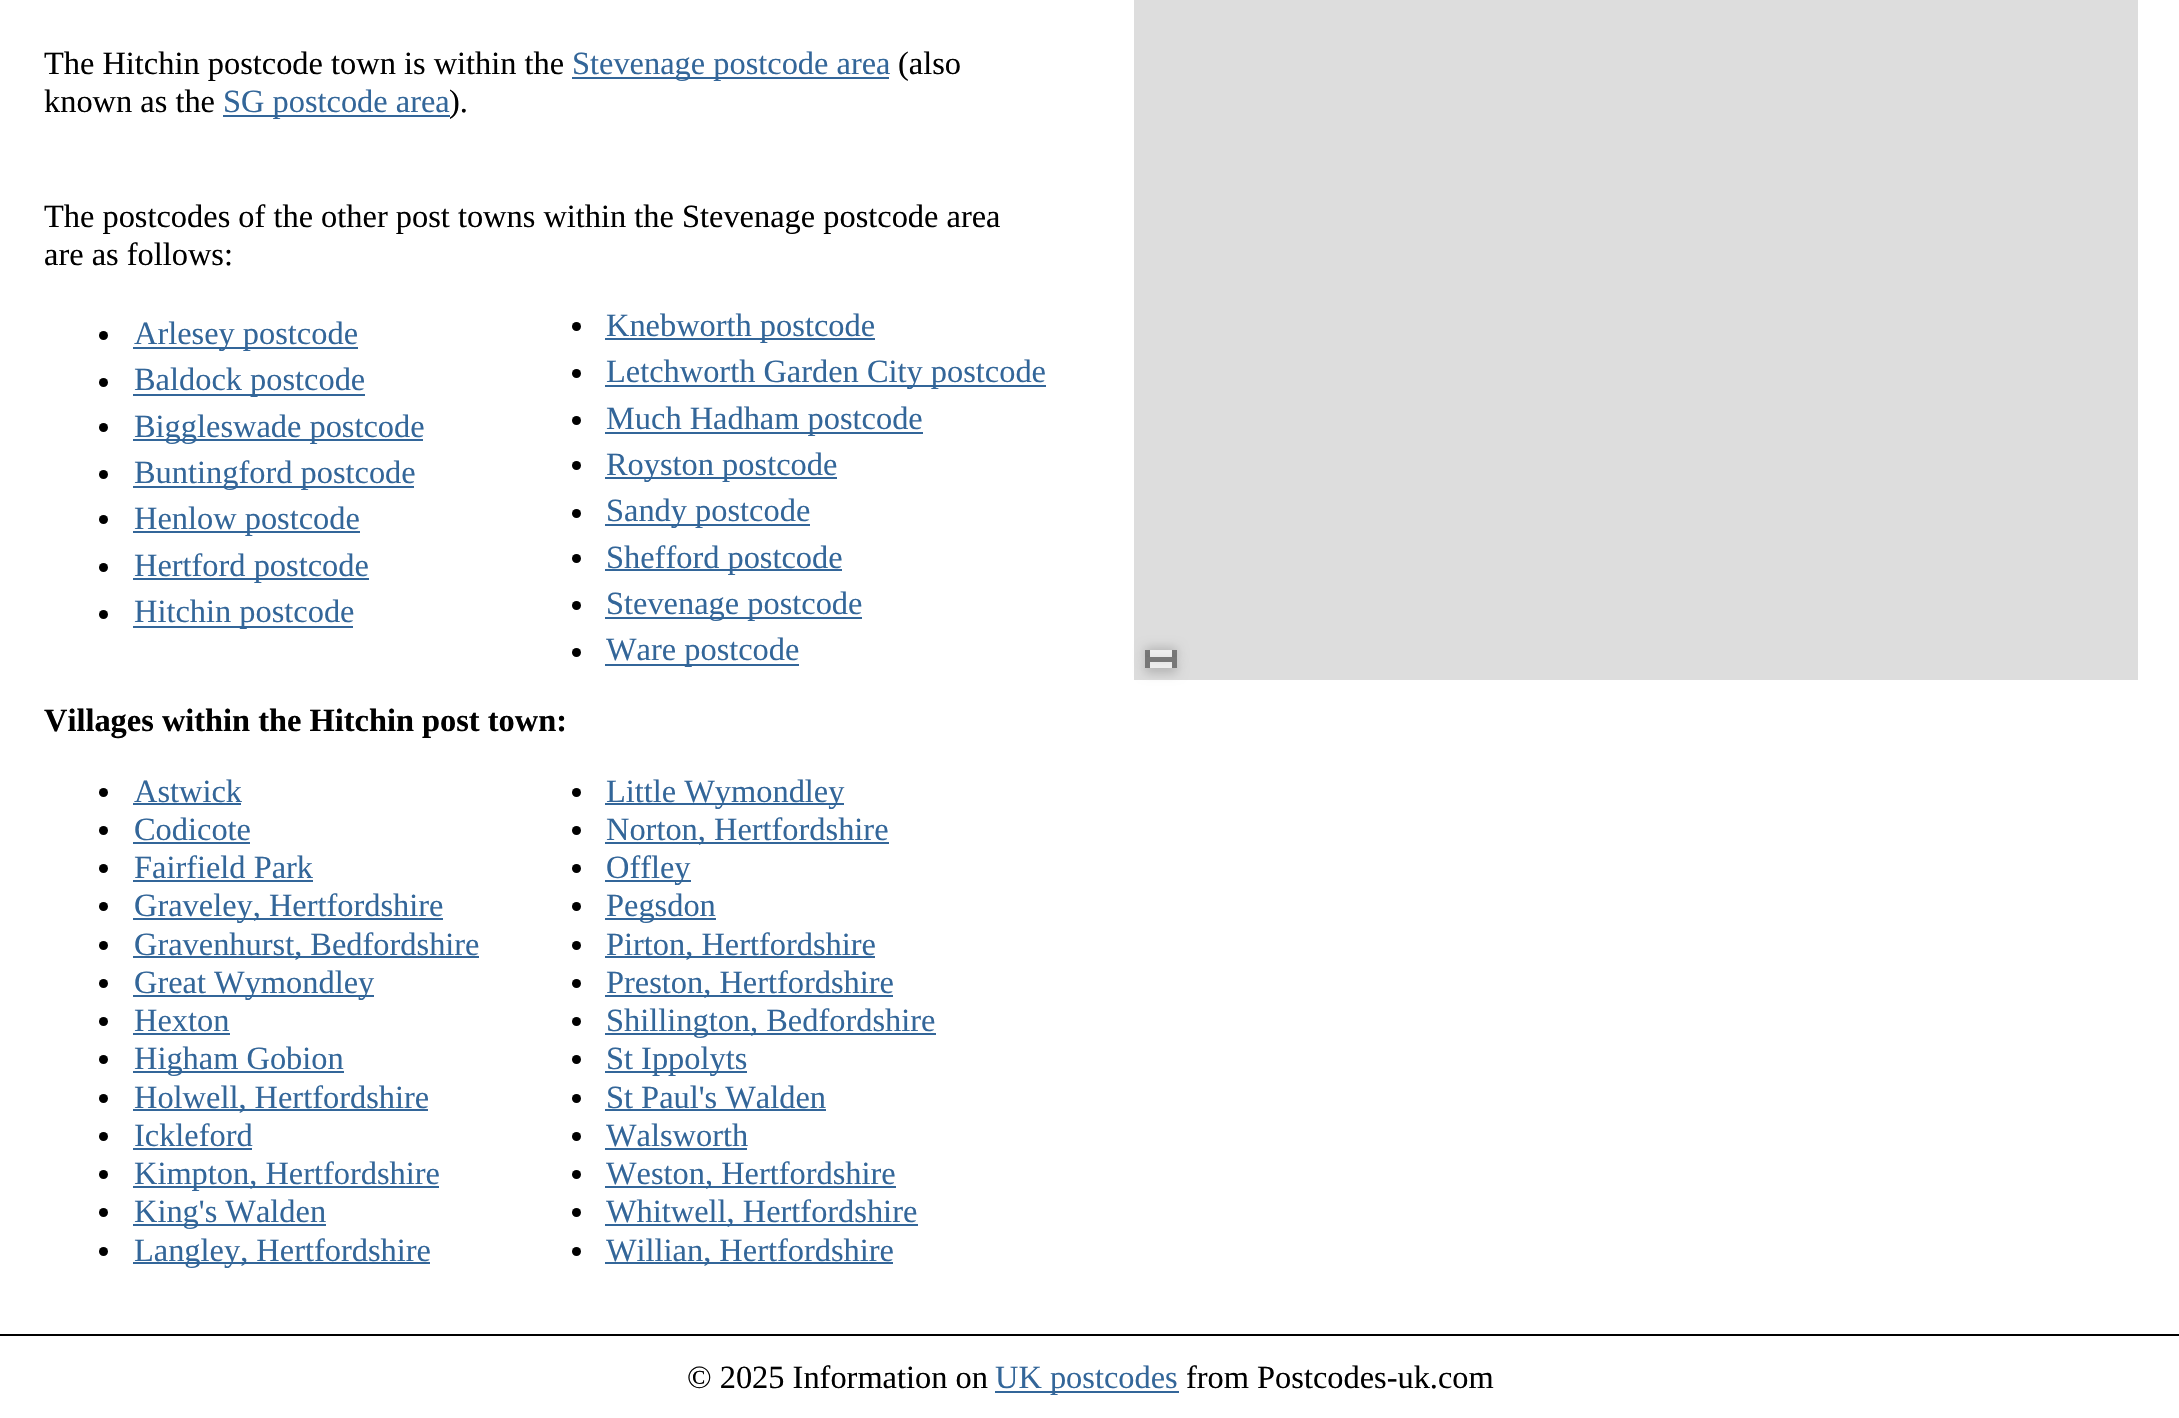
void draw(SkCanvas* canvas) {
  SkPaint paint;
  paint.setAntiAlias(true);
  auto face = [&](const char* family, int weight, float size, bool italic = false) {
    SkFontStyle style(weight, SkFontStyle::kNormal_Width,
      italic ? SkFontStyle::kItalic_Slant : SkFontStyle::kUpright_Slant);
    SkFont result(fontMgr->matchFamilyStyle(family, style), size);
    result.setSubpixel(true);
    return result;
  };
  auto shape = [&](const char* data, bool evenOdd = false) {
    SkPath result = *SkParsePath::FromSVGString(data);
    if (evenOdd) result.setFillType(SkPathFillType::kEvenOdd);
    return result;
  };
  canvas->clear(0xffffffff);
  paint.setColor(0xff336699);
  canvas->drawRect(SkRect::MakeXYWH(572, 77, 317, 2), paint);
  canvas->drawRect(SkRect::MakeXYWH(223, 115, 227, 2), paint);
  paint.setColor(0xff000000);
  canvas->drawCircle(103.5f, 335.5f, 4.5f, paint);
  paint.setColor(0xff336699);
  canvas->drawRect(SkRect::MakeXYWH(133, 347, 225, 2), paint);
  paint.setColor(0xff000000);
  canvas->drawCircle(576.5f, 326.5f, 4.5f, paint);
  paint.setColor(0xff336699);
  canvas->drawRect(SkRect::MakeXYWH(605, 338, 270, 2), paint);
  paint.setColor(0xff000000);
  canvas->drawCircle(103.5f, 382.5f, 4.5f, paint);
  paint.setColor(0xff336699);
  canvas->drawRect(SkRect::MakeXYWH(133, 394, 232, 2), paint);
  paint.setColor(0xff000000);
  canvas->drawCircle(576.5f, 373.5f, 4.5f, paint);
  paint.setColor(0xff336699);
  canvas->drawRect(SkRect::MakeXYWH(605, 385, 441, 2), paint);
  paint.setColor(0xff000000);
  canvas->drawCircle(103.5f, 427.5f, 4.5f, paint);
  paint.setColor(0xff336699);
  canvas->drawRect(SkRect::MakeXYWH(133, 439, 290, 2), paint);
  paint.setColor(0xff000000);
  canvas->drawCircle(576.5f, 420.5f, 4.5f, paint);
  paint.setColor(0xff336699);
  canvas->drawRect(SkRect::MakeXYWH(605, 432, 318, 2), paint);
  paint.setColor(0xff000000);
  canvas->drawCircle(103.5f, 474.5f, 4.5f, paint);
  paint.setColor(0xff336699);
  canvas->drawRect(SkRect::MakeXYWH(133, 486, 281, 2), paint);
  paint.setColor(0xff000000);
  canvas->drawCircle(576.5f, 465.5f, 4.5f, paint);
  paint.setColor(0xff336699);
  canvas->drawRect(SkRect::MakeXYWH(605, 477, 232, 2), paint);
  paint.setColor(0xff000000);
  canvas->drawCircle(103.5f, 519.5f, 4.5f, paint);
  paint.setColor(0xff336699);
  canvas->drawRect(SkRect::MakeXYWH(133, 531, 227, 2), paint);
  paint.setColor(0xff000000);
  canvas->drawCircle(576.5f, 513.5f, 4.5f, paint);
  paint.setColor(0xff336699);
  canvas->drawRect(SkRect::MakeXYWH(605, 524, 205, 2), paint);
  paint.setColor(0xff000000);
  canvas->drawCircle(103.5f, 567.5f, 4.5f, paint);
  paint.setColor(0xff336699);
  canvas->drawRect(SkRect::MakeXYWH(133, 578, 236, 2), paint);
  paint.setColor(0xff000000);
  canvas->drawCircle(576.5f, 558.5f, 4.5f, paint);
  paint.setColor(0xff336699);
  canvas->drawRect(SkRect::MakeXYWH(605, 569, 237, 2), paint);
  paint.setColor(0xff000000);
  canvas->drawCircle(103.5f, 614.5f, 4.5f, paint);
  paint.setColor(0xff336699);
  canvas->drawRect(SkRect::MakeXYWH(133, 626, 220, 2), paint);
  paint.setColor(0xff000000);
  canvas->drawCircle(576.5f, 605.5f, 4.5f, paint);
  paint.setColor(0xff336699);
  canvas->drawRect(SkRect::MakeXYWH(605, 617, 257, 2), paint);
  paint.setColor(0xff000000);
  canvas->drawCircle(576.5f, 652.5f, 4.5f, paint);
  paint.setColor(0xff336699);
  canvas->drawRect(SkRect::MakeXYWH(605, 664, 194, 2), paint);
  paint.setColor(0xff000000);
  canvas->drawCircle(103.5f, 792.5f, 4.5f, paint);
  paint.setColor(0xff336699);
  canvas->drawRect(SkRect::MakeXYWH(133, 803, 108, 2), paint);
  paint.setColor(0xff000000);
  canvas->drawCircle(576.5f, 792.5f, 4.5f, paint);
  paint.setColor(0xff336699);
  canvas->drawRect(SkRect::MakeXYWH(605, 803, 239, 2), paint);
  paint.setColor(0xff000000);
  canvas->drawCircle(103.5f, 830.5f, 4.5f, paint);
  paint.setColor(0xff336699);
  canvas->drawRect(SkRect::MakeXYWH(133, 842, 117, 2), paint);
  paint.setColor(0xff000000);
  canvas->drawCircle(576.5f, 830.5f, 4.5f, paint);
  paint.setColor(0xff336699);
  canvas->drawRect(SkRect::MakeXYWH(605, 842, 284, 2), paint);
  paint.setColor(0xff000000);
  canvas->drawCircle(103.5f, 868.5f, 4.5f, paint);
  paint.setColor(0xff336699);
  canvas->drawRect(SkRect::MakeXYWH(133, 880, 180, 2), paint);
  paint.setColor(0xff000000);
  canvas->drawCircle(576.5f, 868.5f, 4.5f, paint);
  paint.setColor(0xff336699);
  canvas->drawRect(SkRect::MakeXYWH(605, 880, 86, 2), paint);
  paint.setColor(0xff000000);
  canvas->drawCircle(103.5f, 906.5f, 4.5f, paint);
  paint.setColor(0xff336699);
  canvas->drawRect(SkRect::MakeXYWH(133, 918, 310, 2), paint);
  paint.setColor(0xff000000);
  canvas->drawCircle(576.5f, 906.5f, 4.5f, paint);
  paint.setColor(0xff336699);
  canvas->drawRect(SkRect::MakeXYWH(605, 918, 111, 2), paint);
  paint.setColor(0xff000000);
  canvas->drawCircle(103.5f, 945.5f, 4.5f, paint);
  paint.setColor(0xff336699);
  canvas->drawRect(SkRect::MakeXYWH(133, 956, 346, 2), paint);
  paint.setColor(0xff000000);
  canvas->drawCircle(576.5f, 945.5f, 4.5f, paint);
  paint.setColor(0xff336699);
  canvas->drawRect(SkRect::MakeXYWH(605, 956, 270, 2), paint);
  paint.setColor(0xff000000);
  canvas->drawCircle(103.5f, 983.5f, 4.5f, paint);
  paint.setColor(0xff336699);
  canvas->drawRect(SkRect::MakeXYWH(133, 995, 241, 2), paint);
  paint.setColor(0xff000000);
  canvas->drawCircle(576.5f, 983.5f, 4.5f, paint);
  paint.setColor(0xff336699);
  canvas->drawRect(SkRect::MakeXYWH(605, 995, 288, 2), paint);
  paint.setColor(0xff000000);
  canvas->drawCircle(103.5f, 1021.5f, 4.5f, paint);
  paint.setColor(0xff336699);
  canvas->drawRect(SkRect::MakeXYWH(133, 1033, 97, 2), paint);
  paint.setColor(0xff000000);
  canvas->drawCircle(576.5f, 1021.5f, 4.5f, paint);
  paint.setColor(0xff336699);
  canvas->drawRect(SkRect::MakeXYWH(605, 1033, 331, 2), paint);
  paint.setColor(0xff000000);
  canvas->drawCircle(103.5f, 1059.5f, 4.5f, paint);
  paint.setColor(0xff336699);
  canvas->drawRect(SkRect::MakeXYWH(133, 1071, 211, 2), paint);
  paint.setColor(0xff000000);
  canvas->drawCircle(576.5f, 1059.5f, 4.5f, paint);
  paint.setColor(0xff336699);
  canvas->drawRect(SkRect::MakeXYWH(605, 1071, 142, 2), paint);
  paint.setColor(0xff000000);
  canvas->drawCircle(103.5f, 1098.5f, 4.5f, paint);
  paint.setColor(0xff336699);
  canvas->drawRect(SkRect::MakeXYWH(133, 1109, 295, 2), paint);
  paint.setColor(0xff000000);
  canvas->drawCircle(576.5f, 1098.5f, 4.5f, paint);
  paint.setColor(0xff336699);
  canvas->drawRect(SkRect::MakeXYWH(605, 1109, 221, 2), paint);
  paint.setColor(0xff000000);
  canvas->drawCircle(103.5f, 1136.5f, 4.5f, paint);
  paint.setColor(0xff336699);
  canvas->drawRect(SkRect::MakeXYWH(133, 1148, 119, 2), paint);
  paint.setColor(0xff000000);
  canvas->drawCircle(576.5f, 1136.5f, 4.5f, paint);
  paint.setColor(0xff336699);
  canvas->drawRect(SkRect::MakeXYWH(605, 1148, 142, 2), paint);
  paint.setColor(0xff000000);
  canvas->drawCircle(103.5f, 1174.5f, 4.5f, paint);
  paint.setColor(0xff336699);
  canvas->drawRect(SkRect::MakeXYWH(133, 1186, 306, 2), paint);
  paint.setColor(0xff000000);
  canvas->drawCircle(576.5f, 1174.5f, 4.5f, paint);
  paint.setColor(0xff336699);
  canvas->drawRect(SkRect::MakeXYWH(605, 1186, 291, 2), paint);
  paint.setColor(0xff000000);
  canvas->drawCircle(103.5f, 1212.5f, 4.5f, paint);
  paint.setColor(0xff336699);
  canvas->drawRect(SkRect::MakeXYWH(133, 1224, 193, 2), paint);
  paint.setColor(0xff000000);
  canvas->drawCircle(576.5f, 1212.5f, 4.5f, paint);
  paint.setColor(0xff336699);
  canvas->drawRect(SkRect::MakeXYWH(605, 1224, 313, 2), paint);
  paint.setColor(0xff000000);
  canvas->drawCircle(103.5f, 1251.5f, 4.5f, paint);
  paint.setColor(0xff336699);
  canvas->drawRect(SkRect::MakeXYWH(133, 1262, 297, 2), paint);
  paint.setColor(0xff000000);
  canvas->drawCircle(576.5f, 1251.5f, 4.5f, paint);
  paint.setColor(0xff336699);
  canvas->drawRect(SkRect::MakeXYWH(605, 1262, 288, 2), paint);
  paint.setColor(0xffdddddd);
  canvas->drawRect(SkRect::MakeXYWH(1134, 0, 1004, 680), paint);
  canvas->save();
  canvas->clipPath(shape("M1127 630H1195V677H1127ZM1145 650H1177V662H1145Z", true), true);
  paint.setColor(0x33000000);
  paint.setMaskFilter(SkMaskFilter::MakeBlur(kNormal_SkBlurStyle, 5.5f));
  canvas->drawRect(SkRect::MakeXYWH(1145, 648, 32, 11), paint);
  paint.setMaskFilter(nullptr);
  canvas->restore();
  {
    const struct { float x, y, w, h; SkColor color; } items[] = {
      {1150, 650, 22, 7, 0x80ffffff},
      {1172, 650, 5, 12, 0xff777777},
      {1145, 650, 5, 12, 0xff777777},
    };
    for (auto [x, y, w, h, color] : items) {
      paint.setColor(color);
      canvas->drawRect(SkRect::MakeXYWH(x, y, w, h), paint);
    }
  }
  canvas->save();
  canvas->clipPath(shape("M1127 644H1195V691H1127ZM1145 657H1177V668H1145Z", true), true);
  paint.setColor(0x33000000);
  paint.setMaskFilter(SkMaskFilter::MakeBlur(kNormal_SkBlurStyle, 5.5f));
  canvas->drawRect(SkRect::MakeXYWH(1145, 662, 32, 11), paint);
  paint.setMaskFilter(nullptr);
  canvas->restore();
  {
    const struct { float x, y, w, h; SkColor color; } items[] = {
      {1150, 662, 22, 6, 0x80ffffff},
      {1145, 657, 32, 5, 0xff777777},
      {1172, 657, 5, 11, 0xff777777},
      {1145, 657, 5, 11, 0xff777777},
      {0, 1334, 2179, 2, 0xff000000},
      {995, 1391, 184, 2, 0xff336699},
    };
    for (auto [x, y, w, h, color] : items) {
      paint.setColor(color);
      canvas->drawRect(SkRect::MakeXYWH(x, y, w, h), paint);
    }
  }
  auto f0 = face("Liberation Serif", 400, 32.4f);
  paint.setColor(0xff000000);
  canvas->drawString("The Hitchin postcode town is within the", 44, 74, f0, paint);
  paint.setColor(0xff336699);
  canvas->drawString("Stevenage postcode area", 572, 74, f0, paint);
  paint.setColor(0xff000000);
  canvas->drawString("(also", 898, 74, f0, paint);
  canvas->drawString("known as the", 44, 112, f0, paint);
  paint.setColor(0xff336699);
  canvas->drawString("SG postcode area", 223, 112, f0, paint);
  paint.setColor(0xff000000);
  {
    const struct { const char* s; float x, y; } items[] = {
      {").", 449, 112},
      {"The postcodes of the other post towns within the Stevenage postcode area", 44, 227},
      {"are as follows:", 44, 265},
    };
    for (auto [s, x, y] : items) {
      canvas->drawString(s, x, y, f0, paint);
    }
  }
  paint.setColor(0xff336699);
  {
    const struct { const char* s; float x, y; } items[] = {
      {"Arlesey postcode", 134, 344},
      {"Knebworth postcode", 606, 336},
      {"Baldock postcode", 134, 390},
      {"Letchworth Garden City postcode", 606, 382},
      {"Biggleswade postcode", 134, 437},
      {"Much Hadham postcode", 606, 429},
      {"Buntingford postcode", 134, 483},
      {"Royston postcode", 606, 475},
      {"Henlow postcode", 134, 529},
      {"Sandy postcode", 606, 521},
      {"Hertford postcode", 134, 576},
      {"Shefford postcode", 606, 568},
      {"Hitchin postcode", 134, 622},
      {"Stevenage postcode", 606, 614},
      {"Ware postcode", 606, 660},
    };
    for (auto [s, x, y] : items) {
      canvas->drawString(s, x, y, f0, paint);
    }
  }
  auto f1 = face("Liberation Serif", 700, 32.4f);
  paint.setColor(0xff000000);
  canvas->drawString("Villages within the Hitchin post town:", 44, 731, f1, paint);
  paint.setColor(0xff336699);
  {
    const struct { const char* s; float x, y; } items[] = {
      {"Astwick", 134, 802},
      {"Little Wymondley", 606, 802},
      {"Codicote", 134, 840},
      {"Norton, Hertfordshire", 606, 840},
      {"Fairfield Park", 134, 878},
      {"Offley", 606, 878},
      {"Graveley, Hertfordshire", 134, 916},
      {"Pegsdon", 606, 916},
      {"Gravenhurst, Bedfordshire", 134, 955},
      {"Pirton, Hertfordshire", 606, 955},
      {"Great Wymondley", 134, 993},
      {"Preston, Hertfordshire", 606, 993},
      {"Hexton", 134, 1031},
      {"Shillington, Bedfordshire", 606, 1031},
      {"Higham Gobion", 134, 1069},
      {"St Ippolyts", 606, 1069},
      {"Holwell, Hertfordshire", 134, 1108},
      {"St Paul's Walden", 606, 1108},
      {"Ickleford", 134, 1146},
      {"Walsworth", 606, 1146},
      {"Kimpton, Hertfordshire", 134, 1184},
      {"Weston, Hertfordshire", 606, 1184},
      {"King's Walden", 134, 1222},
      {"Whitwell, Hertfordshire", 606, 1222},
      {"Langley, Hertfordshire", 134, 1261},
      {"Willian, Hertfordshire", 606, 1261},
    };
    for (auto [s, x, y] : items) {
      canvas->drawString(s, x, y, f0, paint);
    }
  }
  paint.setColor(0xff000000);
  canvas->drawString("© 2025 Information on", 687, 1388, f0, paint);
  paint.setColor(0xff336699);
  canvas->drawString("UK postcodes", 995, 1388, f0, paint);
  paint.setColor(0xff000000);
  canvas->drawString("from Postcodes-uk.com", 1186, 1388, f0, paint);
}
